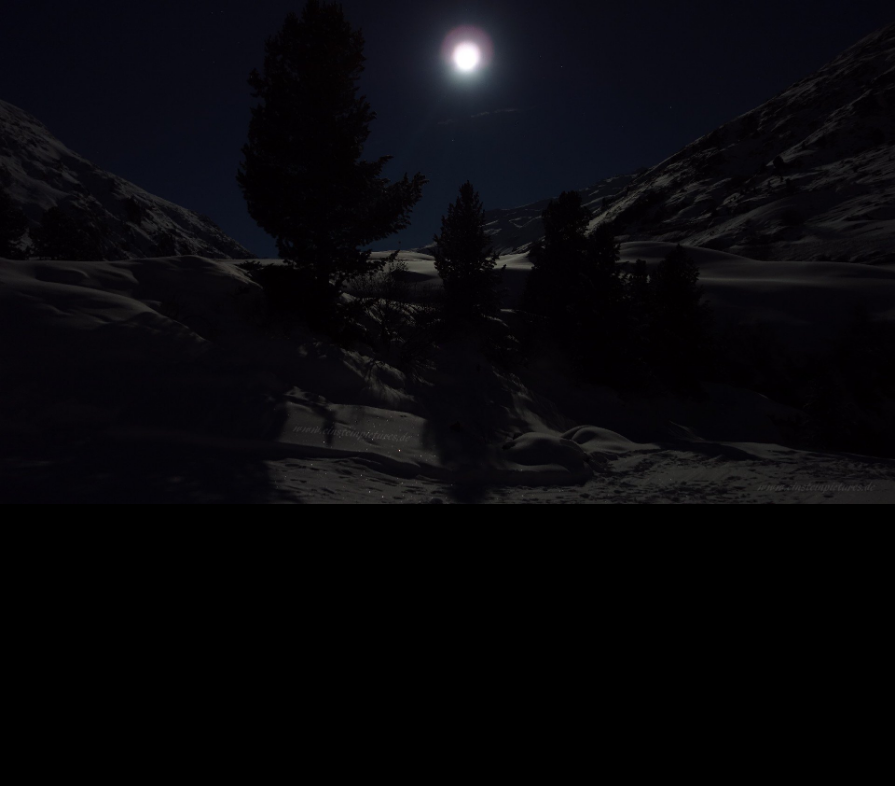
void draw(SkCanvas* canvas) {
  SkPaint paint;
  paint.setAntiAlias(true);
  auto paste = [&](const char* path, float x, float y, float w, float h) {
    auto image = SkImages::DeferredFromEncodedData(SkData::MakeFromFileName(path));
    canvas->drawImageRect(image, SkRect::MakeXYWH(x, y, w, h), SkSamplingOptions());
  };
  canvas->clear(0xff000000);
  paste("img/1.png", 0, 0, 895, 504);
}
